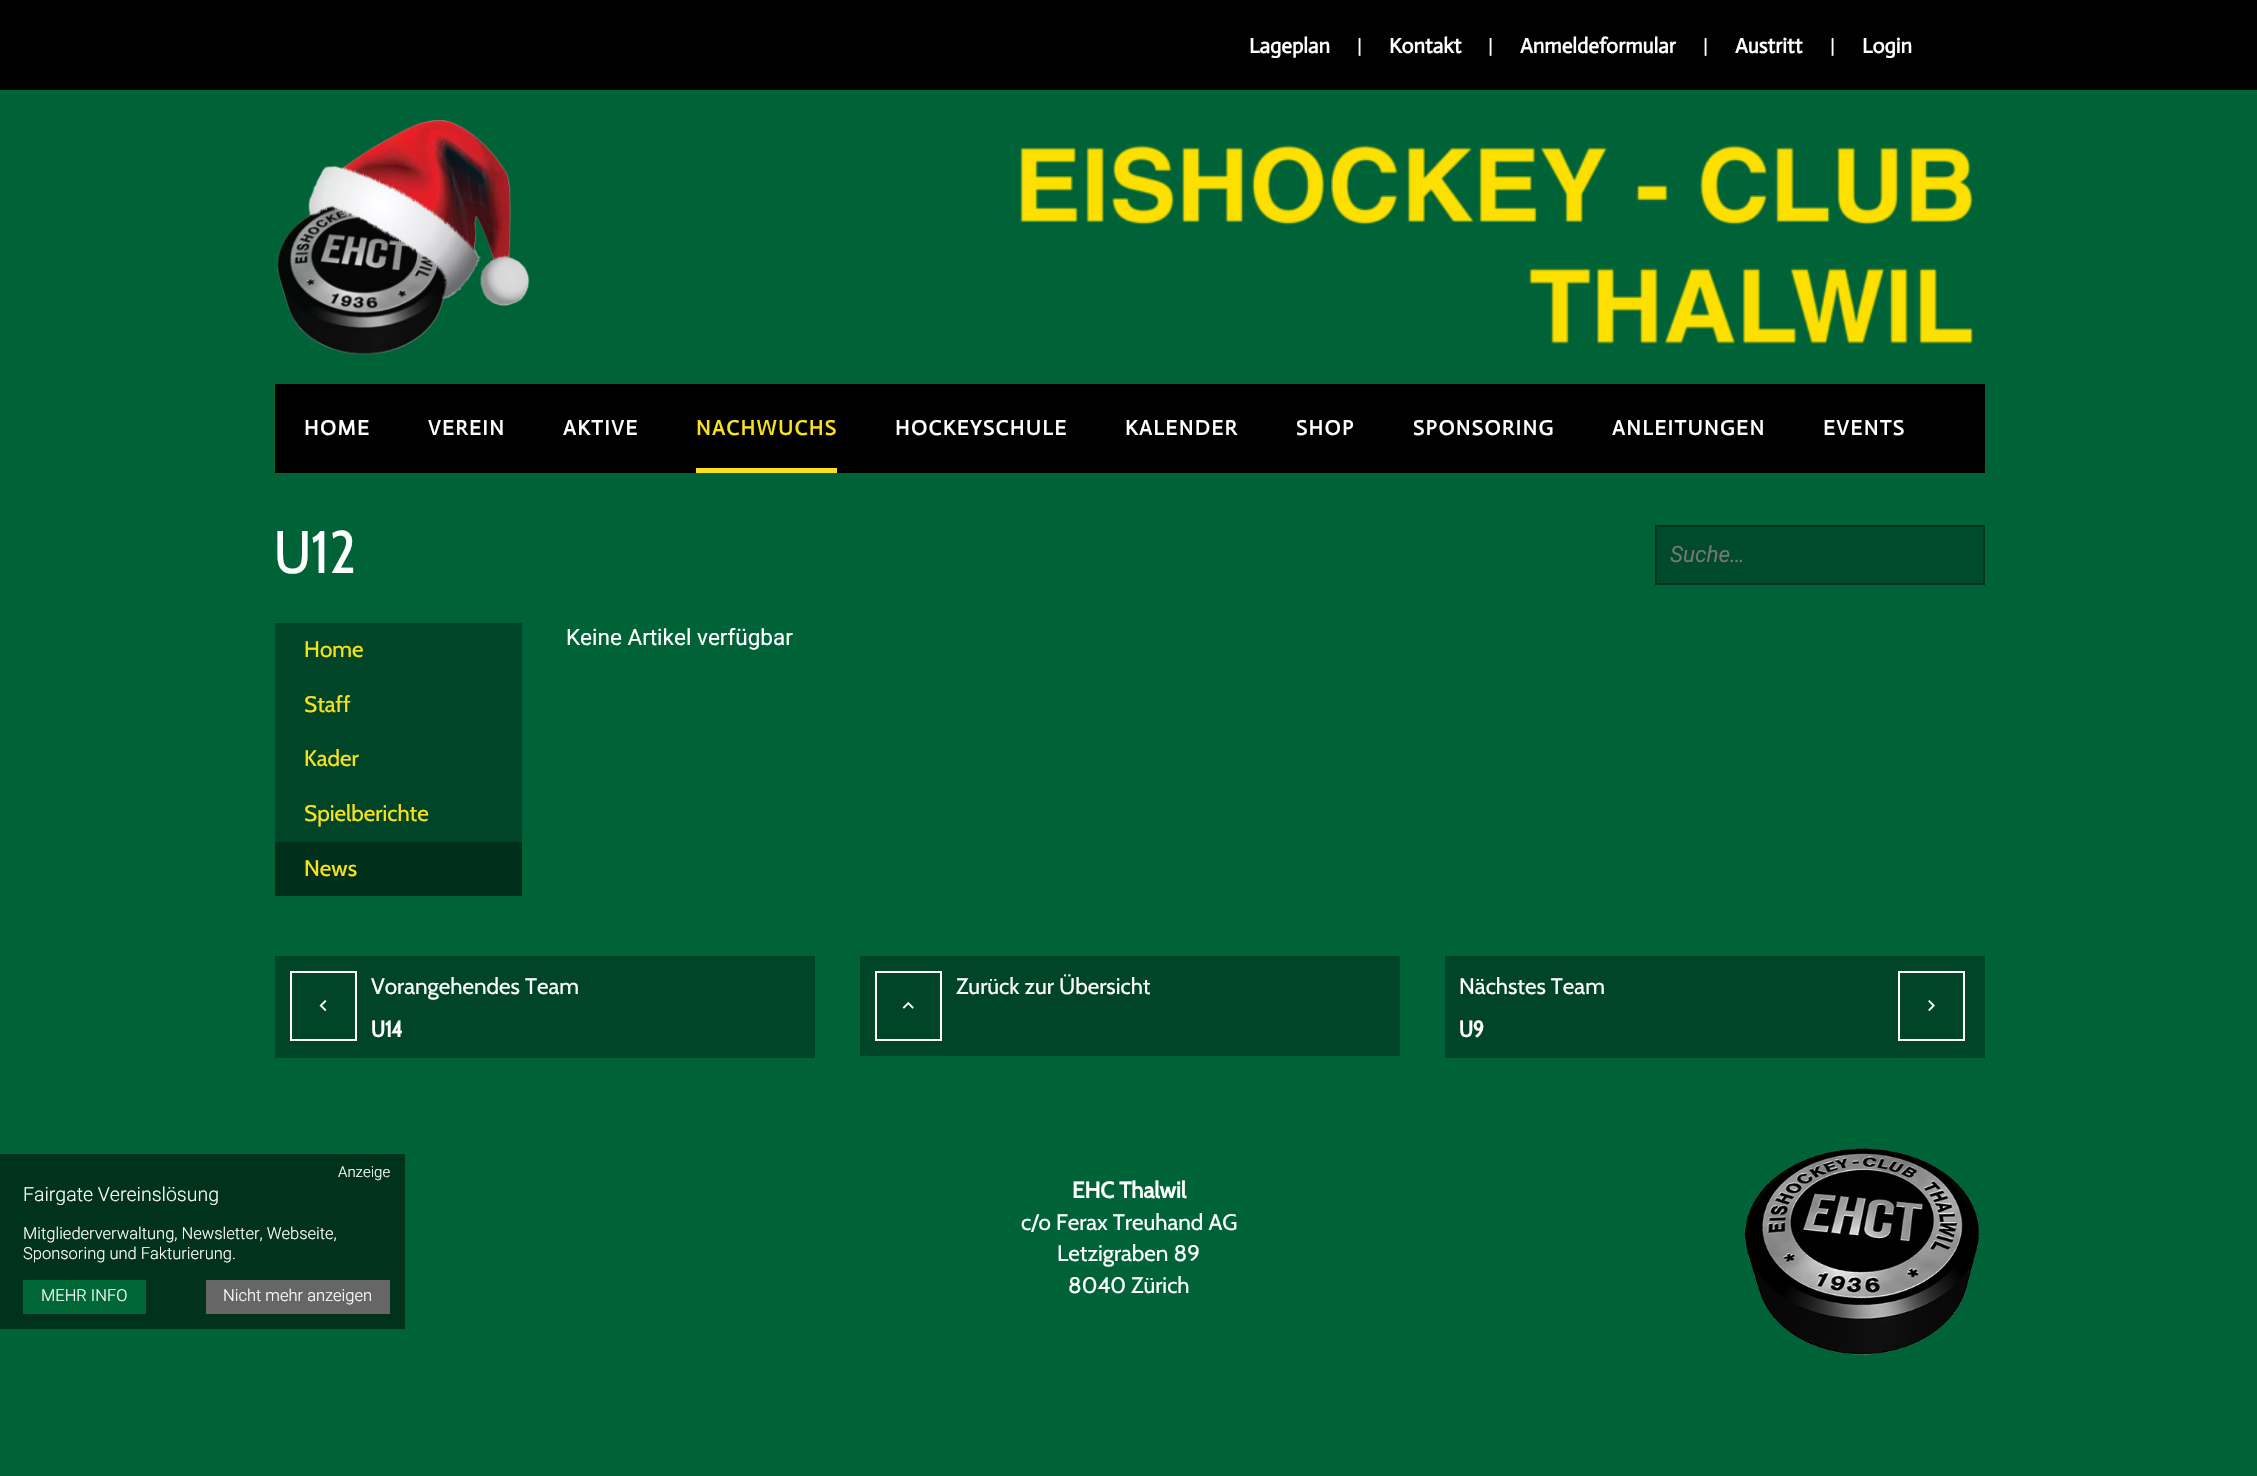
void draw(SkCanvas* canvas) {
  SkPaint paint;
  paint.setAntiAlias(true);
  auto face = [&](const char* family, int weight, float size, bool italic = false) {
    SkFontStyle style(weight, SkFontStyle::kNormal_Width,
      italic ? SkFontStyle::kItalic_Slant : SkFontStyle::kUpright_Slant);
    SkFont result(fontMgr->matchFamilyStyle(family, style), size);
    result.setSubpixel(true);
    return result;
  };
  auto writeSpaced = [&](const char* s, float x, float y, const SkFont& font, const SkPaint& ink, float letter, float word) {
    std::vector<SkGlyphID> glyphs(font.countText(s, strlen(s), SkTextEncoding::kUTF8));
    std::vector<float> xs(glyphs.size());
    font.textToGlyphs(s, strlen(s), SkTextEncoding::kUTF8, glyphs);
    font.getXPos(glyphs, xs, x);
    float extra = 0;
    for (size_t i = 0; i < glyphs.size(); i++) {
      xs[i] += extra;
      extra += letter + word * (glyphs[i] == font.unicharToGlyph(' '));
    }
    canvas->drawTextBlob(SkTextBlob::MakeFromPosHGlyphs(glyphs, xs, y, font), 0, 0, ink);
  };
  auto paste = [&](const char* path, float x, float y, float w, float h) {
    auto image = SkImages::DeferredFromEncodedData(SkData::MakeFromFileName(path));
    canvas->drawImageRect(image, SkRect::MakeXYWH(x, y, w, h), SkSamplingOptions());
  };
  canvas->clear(0xff006338);
  paint.setColor(0xff000000);
  canvas->drawRect(SkRect::MakeXYWH(0, 0, 2257, 90), paint);
  paste("img/1.png", 277, 120, 253, 235);
  paste("img/2.png", 1020, 145, 953, 199);
  canvas->drawRect(SkRect::MakeXYWH(275, 384, 1710, 89), paint);
  paint.setColor(0xfff9e11e);
  canvas->drawRect(SkRect::MakeXYWH(696, 468, 141, 5), paint);
  paint.setColor(0xff004b2b);
  canvas->drawRect(SkRect::MakeXYWH(1656, 526, 328, 58), paint);
  paint.setStroke(true);
  paint.setStrokeWidth(2);
  paint.setColor(0xff00351e);
  canvas->drawRect(SkRect::MakeXYWH(1656, 526, 328, 58), paint);
  paint.setStroke(false);
  {
    const struct { float x, y, w, h; SkColor color; } items[] = {
      {275, 623, 247, 219, 0xff004527},
      {275, 842, 247, 54, 0xff00301b},
      {275, 956, 540, 102, 0xff004527},
    };
    for (auto [x, y, w, h, color] : items) {
      paint.setColor(color);
      canvas->drawRect(SkRect::MakeXYWH(x, y, w, h), paint);
    }
  }
  paint.setStroke(true);
  paint.setColor(0xffffffff);
  canvas->drawRect(SkRect::MakeXYWH(291, 972, 65, 68), paint);
  paste("img/3.png", 319, 1000, 8, 12);
  paint.setStroke(false);
  paint.setColor(0xff004527);
  canvas->drawRect(SkRect::MakeXYWH(860, 956, 540, 100), paint);
  paint.setStroke(true);
  paint.setColor(0xffffffff);
  canvas->drawRect(SkRect::MakeXYWH(876, 972, 65, 68), paint);
  paste("img/4.png", 902, 1001, 12, 8);
  paint.setStroke(false);
  paint.setColor(0xff004527);
  canvas->drawRect(SkRect::MakeXYWH(1445, 956, 540, 102), paint);
  paint.setStroke(true);
  paint.setColor(0xffffffff);
  canvas->drawRect(SkRect::MakeXYWH(1899, 972, 65, 68), paint);
  paste("img/5.png", 1928, 1000, 7, 12);
  paint.setStroke(false);
  {
    const struct { float x, y, w, h; SkColor color; } items[] = {
      {0, 1154, 405, 175, 0xff00321c},
      {23, 1280, 123, 34, 0xff006837},
      {206, 1280, 184, 34, 0xff666666},
    };
    for (auto [x, y, w, h, color] : items) {
      paint.setColor(color);
      canvas->drawRect(SkRect::MakeXYWH(x, y, w, h), paint);
    }
  }
  paste("img/6.png", 1744, 1148, 236, 207);
  auto f0 = face("Actor", 700, 21);
  paint.setColor(0xffffffff);
  canvas->drawString("Lageplan", 1249, 53, f0, paint);
  auto f1 = face("Roboto", 400, 21);
  canvas->drawString("|", 1357, 53, f1, paint);
  canvas->drawString("Kontakt", 1389, 53, f0, paint);
  canvas->drawString("|", 1488, 53, f1, paint);
  canvas->drawString("Anmeldeformular", 1520, 53, f0, paint);
  canvas->drawString("|", 1703, 53, f1, paint);
  canvas->drawString("Austritt", 1735, 53, f0, paint);
  canvas->drawString("|", 1830, 53, f1, paint);
  canvas->drawString("Login", 1862, 53, f0, paint);
  {
    const struct { const char* s; float x, y; } items[] = {
      {"HOME", 304, 435},
      {"VEREIN", 428, 435},
      {"AKTIVE", 563, 435},
    };
    for (auto [s, x, y] : items) {
      writeSpaced(s, x, y, f0, paint, 1.5f, 0);
    }
  }
  paint.setColor(0xfff9e11e);
  writeSpaced("NACHWUCHS", 696, 435, f0, paint, 1.5f, 0);
  paint.setColor(0xffffffff);
  {
    const struct { const char* s; float x, y; } items[] = {
      {"HOCKEYSCHULE", 895, 435},
      {"KALENDER", 1125, 435},
      {"SHOP", 1296, 435},
      {"SPONSORING", 1413, 435},
      {"ANLEITUNGEN", 1612, 435},
      {"EVENTS", 1823, 435},
    };
    for (auto [s, x, y] : items) {
      writeSpaced(s, x, y, f0, paint, 1.5f, 0);
    }
  }
  auto f2 = face("Cabin Condensed", 400, 60);
  canvas->drawString("U12", 274, 573, f2, paint);
  auto f3 = face("Roboto", 400, 22.5f, true);
  paint.setColor(0xff757575);
  canvas->drawString("Suche…", 1670, 562, f3, paint);
  auto f4 = face("Roboto", 400, 22.5f);
  paint.setColor(0xffffffff);
  canvas->drawString("Keine Artikel verfügbar", 566, 645, f4, paint);
  auto f5 = face("Cabin", 400, 22.5f);
  paint.setColor(0xfff9e11e);
  {
    const struct { const char* s; float x, y; } items[] = {
      {"Home", 304, 657},
      {"Staff", 304, 712},
      {"Kader", 304, 766},
      {"Spielberichte", 304, 821},
      {"News", 304, 876},
    };
    for (auto [s, x, y] : items) {
      canvas->drawString(s, x, y, f5, paint);
    }
  }
  paint.setColor(0xffffffff);
  canvas->drawString("Vorangehendes Team", 371, 994, f5, paint);
  auto f6 = face("Cabin Condensed", 700, 22.5f);
  canvas->drawString("U14", 371, 1037, f6, paint);
  canvas->drawString("Zurück zur Übersicht", 956, 994, f5, paint);
  canvas->drawString("Nächstes Team", 1459, 994, f5, paint);
  canvas->drawString("U9", 1459, 1037, f6, paint);
  auto f7 = face("Roboto", 300, 15);
  canvas->drawString("Anzeige", 338, 1177, f7, paint);
  auto f8 = face("Roboto", 300, 19.5f);
  canvas->drawString("Fairgate Vereinslösung", 23, 1201, f8, paint);
  auto f9 = face("Roboto", 300, 16.5f);
  {
    const struct { const char* s; float x, y; } items[] = {
      {"Mitgliederverwaltung, Newsletter, Webseite,", 23, 1239},
      {"Sponsoring und Fakturierung.", 23, 1259},
      {"MEHR INFO", 41, 1301},
      {"Nicht mehr anzeigen", 223, 1301},
    };
    for (auto [s, x, y] : items) {
      canvas->drawString(s, x, y, f9, paint);
    }
  }
  auto f10 = face("Cabin", 700, 22.5f);
  canvas->drawString("EHC Thalwil", 1072, 1198, f10, paint);
  {
    const struct { const char* s; float x, y; } items[] = {
      {"c/o Ferax Treuhand AG", 1021, 1230},
      {"Letzigraben 89", 1057, 1261},
      {"8040 Zürich", 1068, 1293},
    };
    for (auto [s, x, y] : items) {
      canvas->drawString(s, x, y, f5, paint);
    }
  }
}
